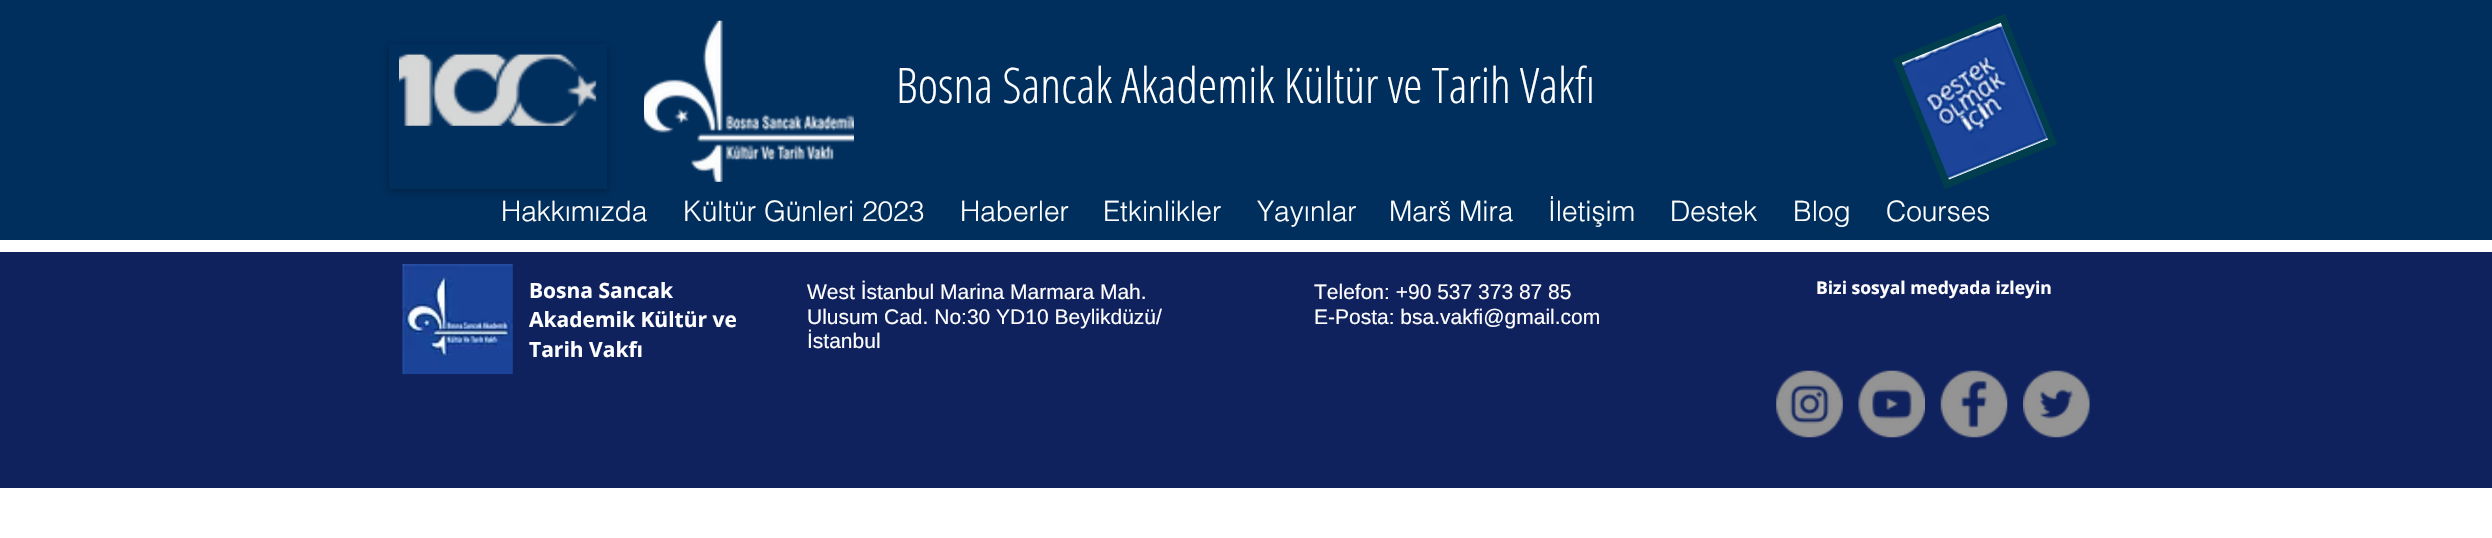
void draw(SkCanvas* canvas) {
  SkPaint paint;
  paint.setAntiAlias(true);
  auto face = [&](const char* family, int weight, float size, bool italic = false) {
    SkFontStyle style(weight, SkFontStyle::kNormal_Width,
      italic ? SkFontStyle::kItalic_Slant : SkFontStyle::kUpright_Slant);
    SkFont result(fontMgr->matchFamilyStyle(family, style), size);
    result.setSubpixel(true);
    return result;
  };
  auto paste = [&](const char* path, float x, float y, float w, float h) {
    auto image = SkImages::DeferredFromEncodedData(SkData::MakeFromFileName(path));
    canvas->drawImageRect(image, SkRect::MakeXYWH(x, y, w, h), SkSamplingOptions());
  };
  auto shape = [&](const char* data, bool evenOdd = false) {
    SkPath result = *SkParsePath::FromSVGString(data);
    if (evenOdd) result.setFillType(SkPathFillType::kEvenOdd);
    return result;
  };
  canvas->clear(0xffffffff);
  paint.setColor(0xff002e5d);
  canvas->drawRect(SkRect::MakeXYWH(0, 0, 2492, 240), paint);
  canvas->save();
  canvas->clipPath(shape("M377 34H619V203H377ZM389 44H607V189H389Z", true), true);
  paint.setColor(0x4d000000);
  paint.setMaskFilter(SkMaskFilter::MakeBlur(kNormal_SkBlurStyle, 3.5f));
  canvas->drawRect(SkRect::MakeXYWH(389, 46, 218, 145), paint);
  paint.setMaskFilter(nullptr);
  canvas->restore();
  paste("img/1.png", 399, 53, 198, 73);
  paste("img/2.png", 644, 20, 210, 162);
  paint.setColor(0xff003d4d);
  canvas->drawPath(shape("M1893 59L2005 14L2057 144L1945 189Z"), paint);
  paint.setStroke(true);
  paint.setStrokeWidth(7);
  canvas->drawPath(shape("M1897 61L2002.5 18.5L2052.5 142L1947 184.5Z"), paint);
  paste("img/3.png", 1901, 22, 147, 158);
  paint.setStroke(false);
  paint.setColor(0xff10225e);
  canvas->drawRect(SkRect::MakeXYWH(0, 252, 2492, 236), paint);
  paste("img/4.png", 402, 264, 111, 111);
  paste("img/5.png", 1776, 370, 67, 68);
  paste("img/6.png", 1858, 370, 67, 68);
  paste("img/7.png", 1940, 370, 68, 68);
  paste("img/8.png", 2023, 370, 67, 68);
  auto f0 = face("Open Sans Condensed", 300, 49);
  paint.setColor(0xffffffff);
  canvas->drawString("Bosna Sancak Akademik Kültür ve Tarih Vakfı", 896, 103, f0, paint);
  auto f1 = face("helvetica", 300, 28);
  {
    const struct { const char* s; float x, y; } items[] = {
      {"Hakkımızda", 501, 221},
      {"Kültür Günleri 2023", 683, 221},
      {"Haberler", 960, 221},
      {"Etkinlikler", 1103, 221},
      {"Yayınlar", 1257, 221},
      {"Marš Mira", 1389, 221},
      {"İletişim", 1548, 221},
      {"Destek", 1670, 221},
      {"Blog", 1793, 221},
      {"Courses", 1886, 221},
    };
    for (auto [s, x, y] : items) {
      canvas->drawString(s, x, y, f1, paint);
    }
  }
  auto f2 = face("Open Sans", 700, 21);
  {
    const struct { const char* s; float x, y; } items[] = {
      {"Bosna Sancak", 529, 298},
      {"Akademik Kültür ve", 529, 327},
      {"Tarih Vakfı", 529, 357},
    };
    for (auto [s, x, y] : items) {
      canvas->drawString(s, x, y, f2, paint);
    }
  }
  auto f3 = face("Liberation Sans", 400, 21);
  {
    const struct { const char* s; float x, y; } items[] = {
      {"West İstanbul Marina Marmara Mah.", 807, 299},
      {"Ulusum Cad. No:30 YD10 Beylikdüzü/", 807, 324},
      {"İstanbul", 807, 348},
      {"Telefon: +90 537 373 87 85", 1314, 299},
      {"E-Posta: bsa.vakfi@gmail.com", 1314, 324},
    };
    for (auto [s, x, y] : items) {
      canvas->drawString(s, x, y, f3, paint);
    }
  }
  auto f4 = face("Open Sans", 700, 17.5f);
  canvas->drawString("Bizi sosyal medyada izleyin", 1816, 294, f4, paint);
}
